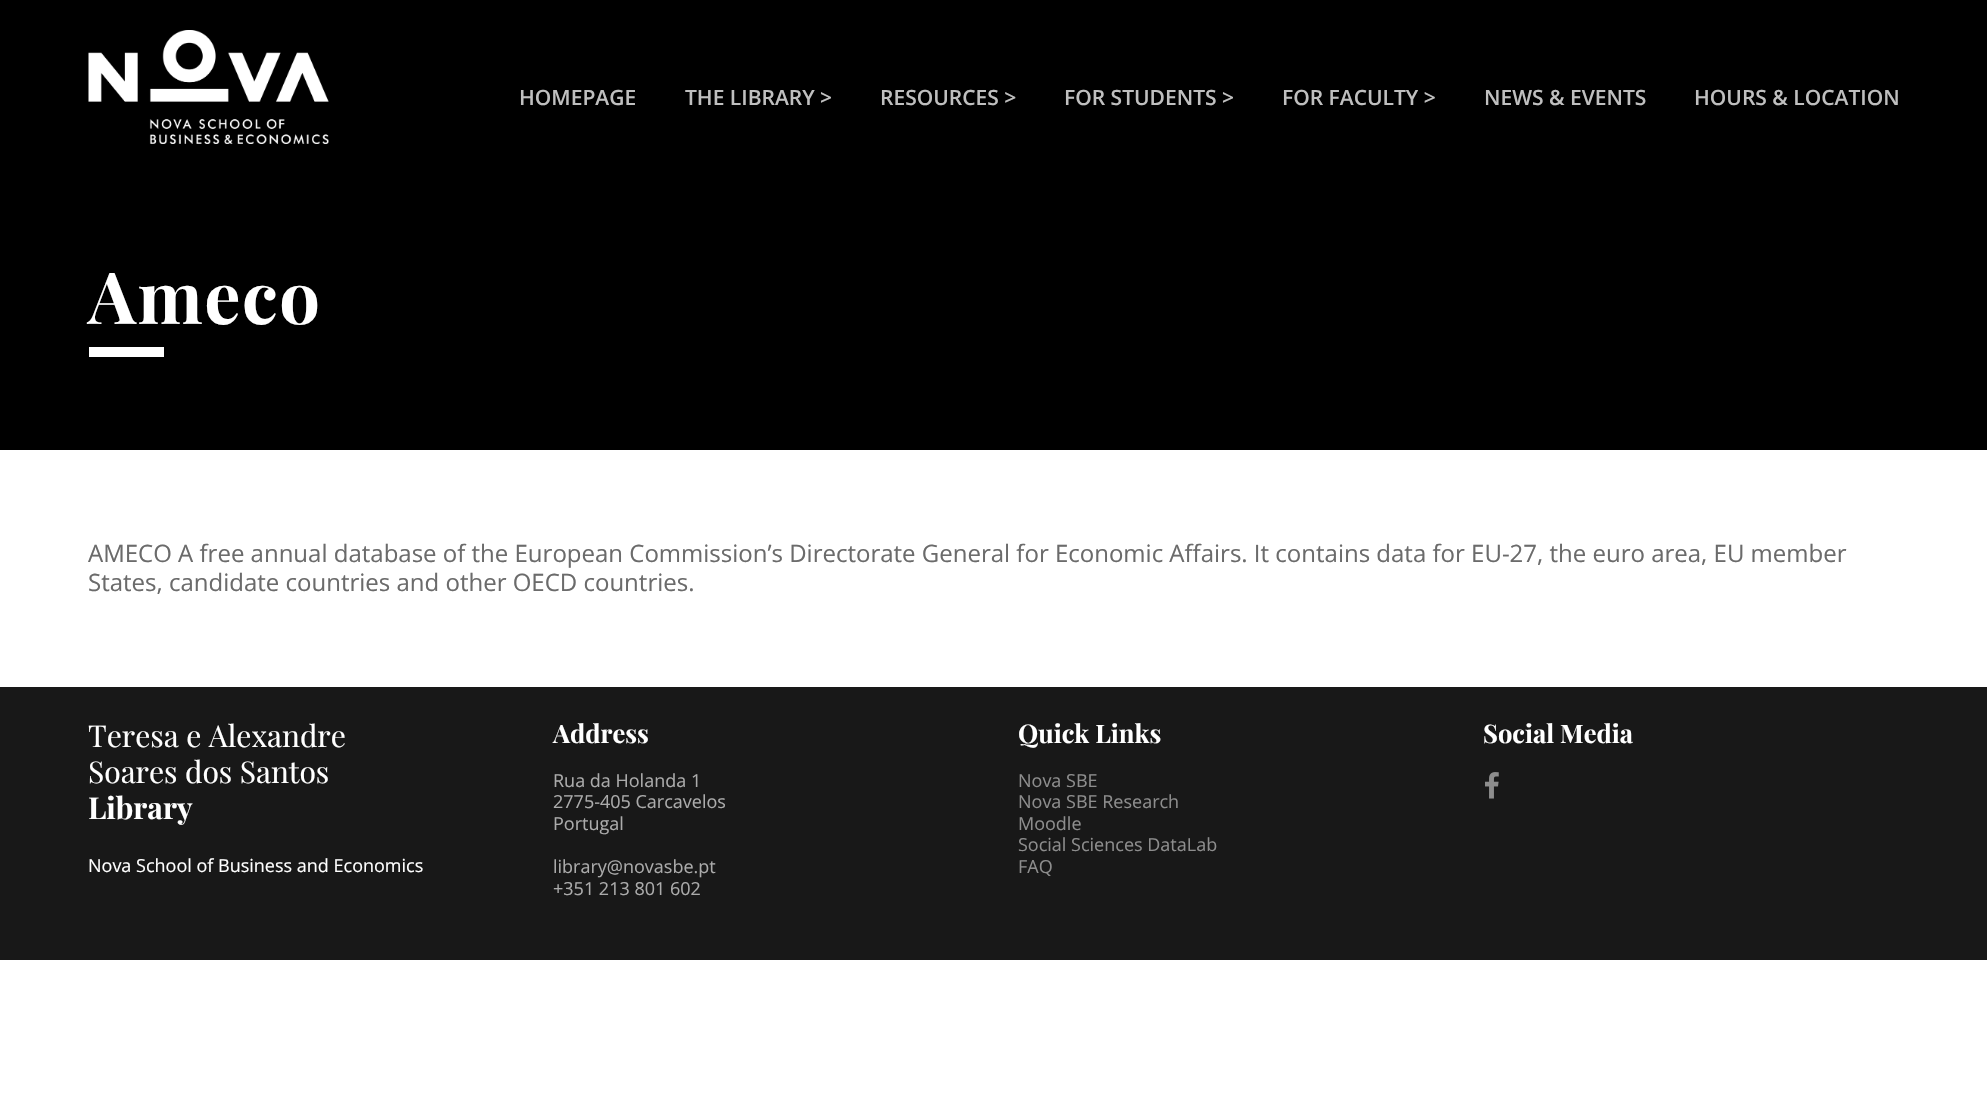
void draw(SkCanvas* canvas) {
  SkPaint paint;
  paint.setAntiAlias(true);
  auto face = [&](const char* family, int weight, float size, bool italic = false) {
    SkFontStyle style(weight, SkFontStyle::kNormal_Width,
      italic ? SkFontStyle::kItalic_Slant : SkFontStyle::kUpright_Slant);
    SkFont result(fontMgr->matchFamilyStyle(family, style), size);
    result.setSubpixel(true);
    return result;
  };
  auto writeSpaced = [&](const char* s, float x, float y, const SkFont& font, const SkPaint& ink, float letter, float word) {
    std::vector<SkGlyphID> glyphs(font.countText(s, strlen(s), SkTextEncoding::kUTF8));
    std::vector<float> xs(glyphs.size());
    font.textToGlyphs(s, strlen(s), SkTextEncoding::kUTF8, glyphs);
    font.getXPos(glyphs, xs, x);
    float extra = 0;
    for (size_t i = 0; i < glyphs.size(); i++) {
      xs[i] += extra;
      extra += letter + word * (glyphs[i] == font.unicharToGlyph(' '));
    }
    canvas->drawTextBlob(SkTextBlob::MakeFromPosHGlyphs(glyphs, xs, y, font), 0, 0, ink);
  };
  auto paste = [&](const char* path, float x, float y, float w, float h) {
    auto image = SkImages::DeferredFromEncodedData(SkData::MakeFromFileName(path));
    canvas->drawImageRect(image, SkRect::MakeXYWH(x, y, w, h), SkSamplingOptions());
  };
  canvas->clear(0xffffffff);
  paint.setColor(0xff000000);
  canvas->drawRect(SkRect::MakeXYWH(0, 0, 1987, 450), paint);
  paste("img/1.png", 88, 30, 241, 114);
  paint.setColor(0xffffffff);
  canvas->drawRect(SkRect::MakeXYWH(89, 347, 75, 10), paint);
  paint.setColor(0xff181818);
  canvas->drawRect(SkRect::MakeXYWH(0, 687, 1987, 273), paint);
  paste("img/2.png", 1485, 772, 14, 27);
  auto f0 = face("Open Sans", 600, 21);
  paint.setColor(0xffbfbfbf);
  {
    const struct { const char* s; float x, y; } items[] = {
      {"HOMEPAGE", 519, 105},
      {"THE LIBRARY >", 685, 105},
      {"RESOURCES >", 880, 105},
      {"FOR STUDENTS >", 1064, 105},
      {"FOR FACULTY >", 1282, 105},
      {"NEWS & EVENTS", 1484, 105},
      {"HOURS & LOCATION", 1694, 105},
    };
    for (auto [s, x, y] : items) {
      canvas->drawString(s, x, y, f0, paint);
    }
  }
  auto f1 = face("Playfair Display", 700, 72);
  paint.setColor(0xffffffff);
  writeSpaced("Ameco", 88, 324, f1, paint, 1.5f, 0);
  auto f2 = face("Open Sans", 400, 24);
  paint.setColor(0xff6b6b6b);
  canvas->drawString("AMECO A free annual database of the European Commission’s Directorate General for Economic Affairs. It contains data for EU-27, the euro area, EU member", 88, 562, f2, paint);
  canvas->drawString("States, candidate countries and other OECD countries.", 88, 591, f2, paint);
  auto f3 = face("Playfair Display", 400, 30);
  paint.setColor(0xffffffff);
  canvas->drawString("Teresa e Alexandre", 88, 747, f3, paint);
  canvas->drawString("Soares dos Santos", 88, 783, f3, paint);
  auto f4 = face("Playfair Display", 700, 30);
  canvas->drawString("Library", 88, 819, f4, paint);
  auto f5 = face("Open Sans", 400, 18);
  canvas->drawString("Nova School of Business and Economics", 88, 872, f5, paint);
  auto f6 = face("Playfair Display", 700, 25.5f);
  canvas->drawString("Address", 553, 743, f6, paint);
  paint.setColor(0xffababab);
  {
    const struct { const char* s; float x, y; } items[] = {
      {"Rua da Holanda 1", 553, 787},
      {"2775-405 Carcavelos", 553, 808},
      {"Portugal", 553, 830},
      {"library@novasbe.pt", 553, 873},
      {"+351 213 801 602", 553, 895},
    };
    for (auto [s, x, y] : items) {
      canvas->drawString(s, x, y, f5, paint);
    }
  }
  paint.setColor(0xffffffff);
  canvas->drawString("Quick Links", 1018, 743, f6, paint);
  paint.setColor(0xff8d8d8d);
  {
    const struct { const char* s; float x, y; } items[] = {
      {"Nova SBE", 1018, 787},
      {"Nova SBE Research", 1018, 808},
      {"Moodle", 1018, 830},
      {"Social Sciences DataLab", 1018, 851},
      {"FAQ", 1018, 873},
    };
    for (auto [s, x, y] : items) {
      canvas->drawString(s, x, y, f5, paint);
    }
  }
  paint.setColor(0xffffffff);
  canvas->drawString("Social Media", 1483, 743, f6, paint);
}
